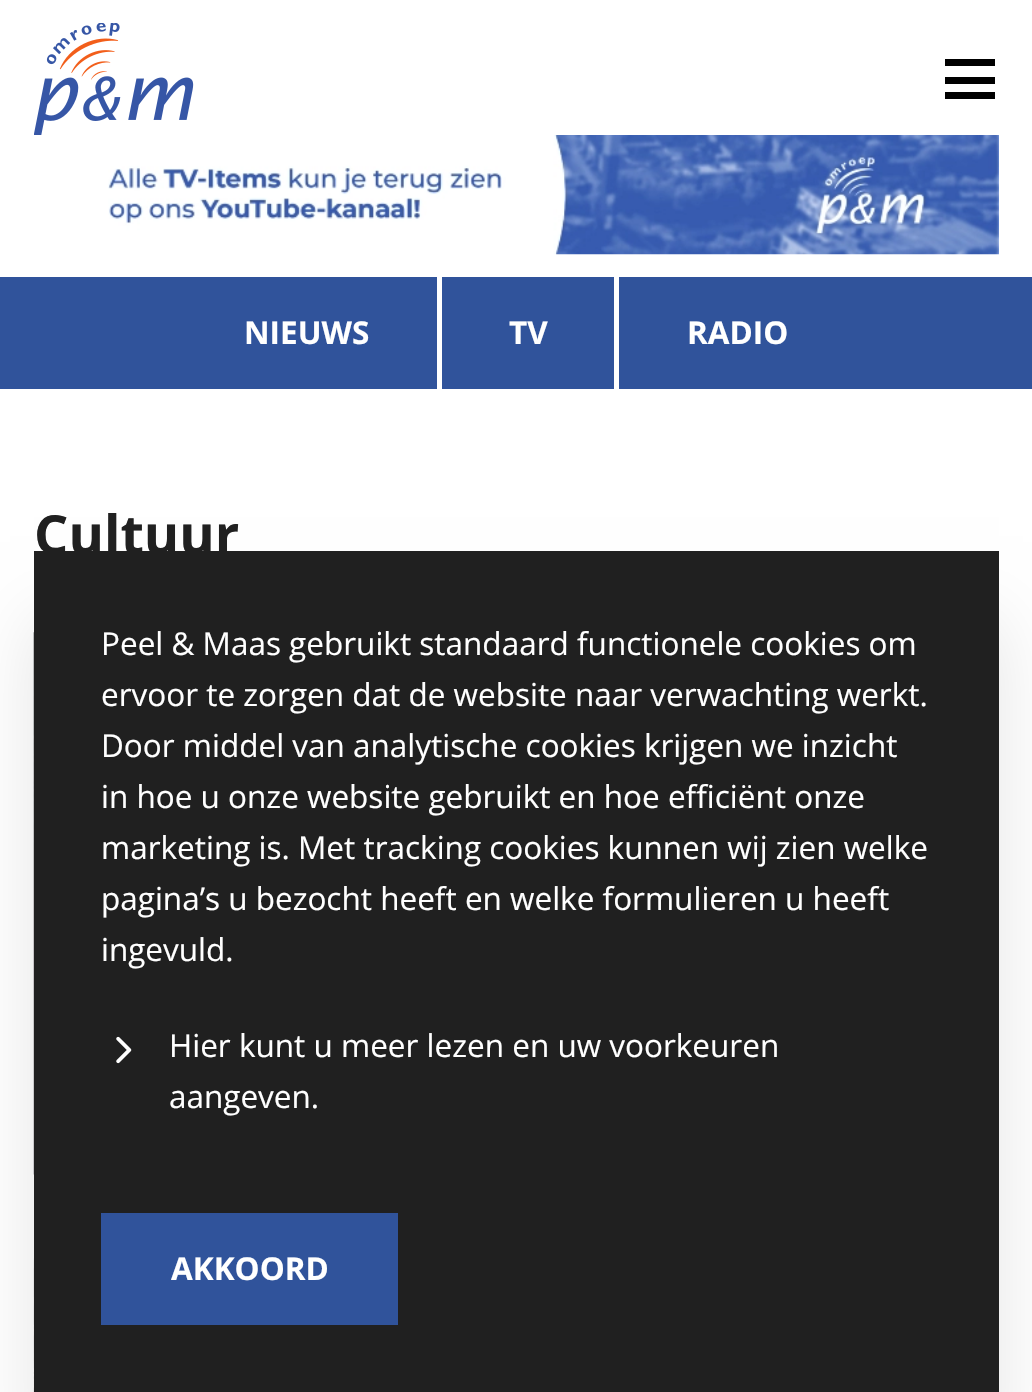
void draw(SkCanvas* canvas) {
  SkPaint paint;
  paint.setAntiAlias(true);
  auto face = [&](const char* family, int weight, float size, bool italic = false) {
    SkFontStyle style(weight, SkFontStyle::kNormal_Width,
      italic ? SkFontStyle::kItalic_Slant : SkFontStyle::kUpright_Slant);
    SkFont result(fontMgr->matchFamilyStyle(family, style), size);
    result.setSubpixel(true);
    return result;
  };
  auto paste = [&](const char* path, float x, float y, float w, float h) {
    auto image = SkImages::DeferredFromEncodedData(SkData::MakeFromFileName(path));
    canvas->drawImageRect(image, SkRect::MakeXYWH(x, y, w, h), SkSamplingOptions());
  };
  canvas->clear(0xffffffff);
  paste("img/1.png", 34, 23, 160, 112);
  {
    const struct { float x, y, w, h; SkColor color; } items[] = {
      {945, 59, 50, 7, 0xff000000},
      {945, 77, 50, 7, 0xff000000},
      {945, 92, 50, 7, 0xff000000},
    };
    for (auto [x, y, w, h, color] : items) {
      paint.setColor(color);
      canvas->drawRect(SkRect::MakeXYWH(x, y, w, h), paint);
    }
  }
  paste("img/2.png", 108, 135, 891, 120);
  {
    const struct { float x, y, w, h; SkColor color; } items[] = {
      {0, 277, 1032, 112, 0xff30539b},
      {437, 277, 5, 112, 0xffffffff},
      {614, 277, 5, 112, 0xffffffff},
    };
    for (auto [x, y, w, h, color] : items) {
      paint.setColor(color);
      canvas->drawRect(SkRect::MakeXYWH(x, y, w, h), paint);
    }
  }
  paste("img/3.png", 33, 632, 1, 543);
  paste("img/4.png", 33, 1253, 1, 139);
  paint.setColor(0x1a000000);
  paint.setMaskFilter(SkMaskFilter::MakeBlur(kNormal_SkBlurStyle, 34));
  canvas->drawRect(SkRect::MakeXYWH(34, 619, 965, 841), paint);
  paint.setMaskFilter(nullptr);
  paint.setColor(0xff202020);
  canvas->drawRect(SkRect::MakeXYWH(34, 551, 965, 841), paint);
  paste("img/5.png", 116, 1036, 16, 28);
  paint.setColor(0xff30539b);
  canvas->drawRect(SkRect::MakeXYWH(101, 1213, 297, 112), paint);
  auto f0 = face("Open Sans", 700, 31.5f);
  paint.setColor(0xffffffff);
  {
    const struct { const char* s; float x, y; } items[] = {
      {"NIEUWS", 244, 344},
      {"TV", 509, 344},
      {"RADIO", 687, 344},
    };
    for (auto [s, x, y] : items) {
      canvas->drawString(s, x, y, f0, paint);
    }
  }
  auto f1 = face("Open Sans", 700, 54);
  paint.setColor(0xff202020);
  canvas->drawString("Cultuur", 34, 554, f1, paint);
  auto f2 = face("Open Sans", 400, 31.5f);
  paint.setColor(0xffffffff);
  {
    const struct { const char* s; float x, y; } items[] = {
      {"Peel & Maas gebruikt standaard functionele cookies om", 101, 655},
      {"ervoor te zorgen dat de website naar verwachting werkt.", 101, 706},
      {"Door middel van analytische cookies krijgen we inzicht", 101, 757},
      {"in hoe u onze website gebruikt en hoe efficiënt onze", 101, 808},
      {"marketing is. Met tracking cookies kunnen wij zien welke", 101, 859},
      {"pagina’s u bezocht heeft en welke formulieren u heeft", 101, 910},
      {"ingevuld.", 101, 961},
      {"Hier kunt u meer lezen en uw voorkeuren", 169, 1057},
      {"aangeven.", 169, 1108},
    };
    for (auto [s, x, y] : items) {
      canvas->drawString(s, x, y, f2, paint);
    }
  }
  canvas->drawString("AKKOORD", 171, 1280, f0, paint);
}
